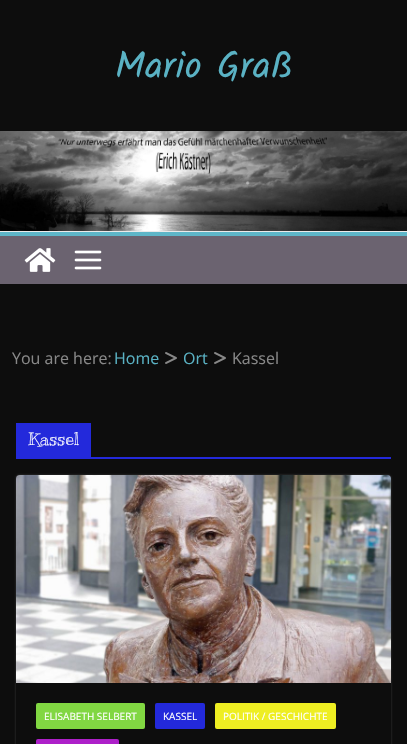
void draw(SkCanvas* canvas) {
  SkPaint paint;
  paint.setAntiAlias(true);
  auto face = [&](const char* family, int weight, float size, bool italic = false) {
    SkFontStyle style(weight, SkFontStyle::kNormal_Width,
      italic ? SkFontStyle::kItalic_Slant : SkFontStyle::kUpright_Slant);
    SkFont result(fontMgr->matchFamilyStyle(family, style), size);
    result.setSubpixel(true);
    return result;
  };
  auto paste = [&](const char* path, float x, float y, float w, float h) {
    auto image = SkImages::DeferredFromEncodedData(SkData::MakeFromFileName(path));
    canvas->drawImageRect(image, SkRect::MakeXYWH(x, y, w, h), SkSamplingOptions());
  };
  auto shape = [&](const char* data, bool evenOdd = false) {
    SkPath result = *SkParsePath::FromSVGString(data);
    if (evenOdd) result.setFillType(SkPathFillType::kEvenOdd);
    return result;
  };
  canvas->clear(0xff0d0d0d);
  paste("img/1.png", 0, 131, 407, 100);
  {
    const struct { float x, y, w, h; SkColor color; } items[] = {
      {0, 231, 407, 1, 0xffebebeb},
      {0, 236, 407, 48, 0xff6b6370},
      {0, 232, 407, 4, 0xff5eb6c8},
    };
    for (auto [x, y, w, h, color] : items) {
      paint.setColor(color);
      canvas->drawRect(SkRect::MakeXYWH(x, y, w, h), paint);
    }
  }
  paste("img/2.png", 24, 248, 32, 24);
  paste("img/3.png", 74, 250, 28, 20);
  paste("img/4.png", 165, 352, 12, 12);
  paste("img/4.png", 214, 352, 12, 12);
  paint.setColor(0xff2329db);
  canvas->drawRect(SkRect::MakeXYWH(16, 457, 375, 2), paint);
  canvas->drawRect(SkRect::MakeXYWH(16, 423, 75, 34), paint);
  canvas->save();
  canvas->clipPath(shape("M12 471H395V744H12ZM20 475H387C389 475 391 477 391 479V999C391 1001 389 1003 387 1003H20C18 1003 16 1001 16 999V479C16 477 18 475 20 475Z", true), true);
  paint.setColor(0x3dffffff);
  paint.setMaskFilter(SkMaskFilter::MakeBlur(kNormal_SkBlurStyle, 1));
  canvas->drawRoundRect(SkRect::MakeXYWH(16, 475, 375, 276), 4, 4, paint);
  paint.setMaskFilter(nullptr);
  canvas->restore();
  paste("img/5.png", 16, 475, 375, 208);
  paint.setColor(0xff81d742);
  canvas->drawRoundRect(SkRect::MakeXYWH(36, 703, 109, 26), 2, 2, paint);
  paint.setColor(0xff2329db);
  canvas->drawRoundRect(SkRect::MakeXYWH(155, 703, 50, 26), 2, 2, paint);
  paint.setColor(0xffeeee22);
  canvas->drawRoundRect(SkRect::MakeXYWH(215, 703, 121, 26), 2, 2, paint);
  paint.setColor(0xffad20c9);
  canvas->drawRoundRect(SkRect::MakeXYWH(36, 739, 83, 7), 2, 2, paint);
  auto f0 = face("Kalam", 400, 38);
  paint.setColor(0xff5ab2c4);
  canvas->drawString("Mario Graß", 115, 78, f0, paint);
  auto f1 = face("Open Sans", 400, 16);
  paint.setColor(0xff888888);
  canvas->drawString("You are here:", 12, 364, f1, paint);
  paint.setColor(0xff5ab2c4);
  canvas->drawString("Home", 114, 364, f1, paint);
  canvas->drawString("Ort", 183, 364, f1, paint);
  paint.setColor(0xff888888);
  canvas->drawString("Kassel", 232, 364, f1, paint);
  auto f2 = face("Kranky", 400, 18);
  paint.setColor(0xffffffff);
  canvas->drawString("Kassel", 28, 445, f2, paint);
  auto f3 = face("Open Sans", 400, 10);
  {
    const struct { const char* s; float x, y; } items[] = {
      {"ELISABETH SELBERT", 44, 720},
      {"KASSEL", 163, 720},
      {"POLITIK / GESCHICHTE", 223, 720},
    };
    for (auto [s, x, y] : items) {
      canvas->drawString(s, x, y, f3, paint);
    }
  }
}
